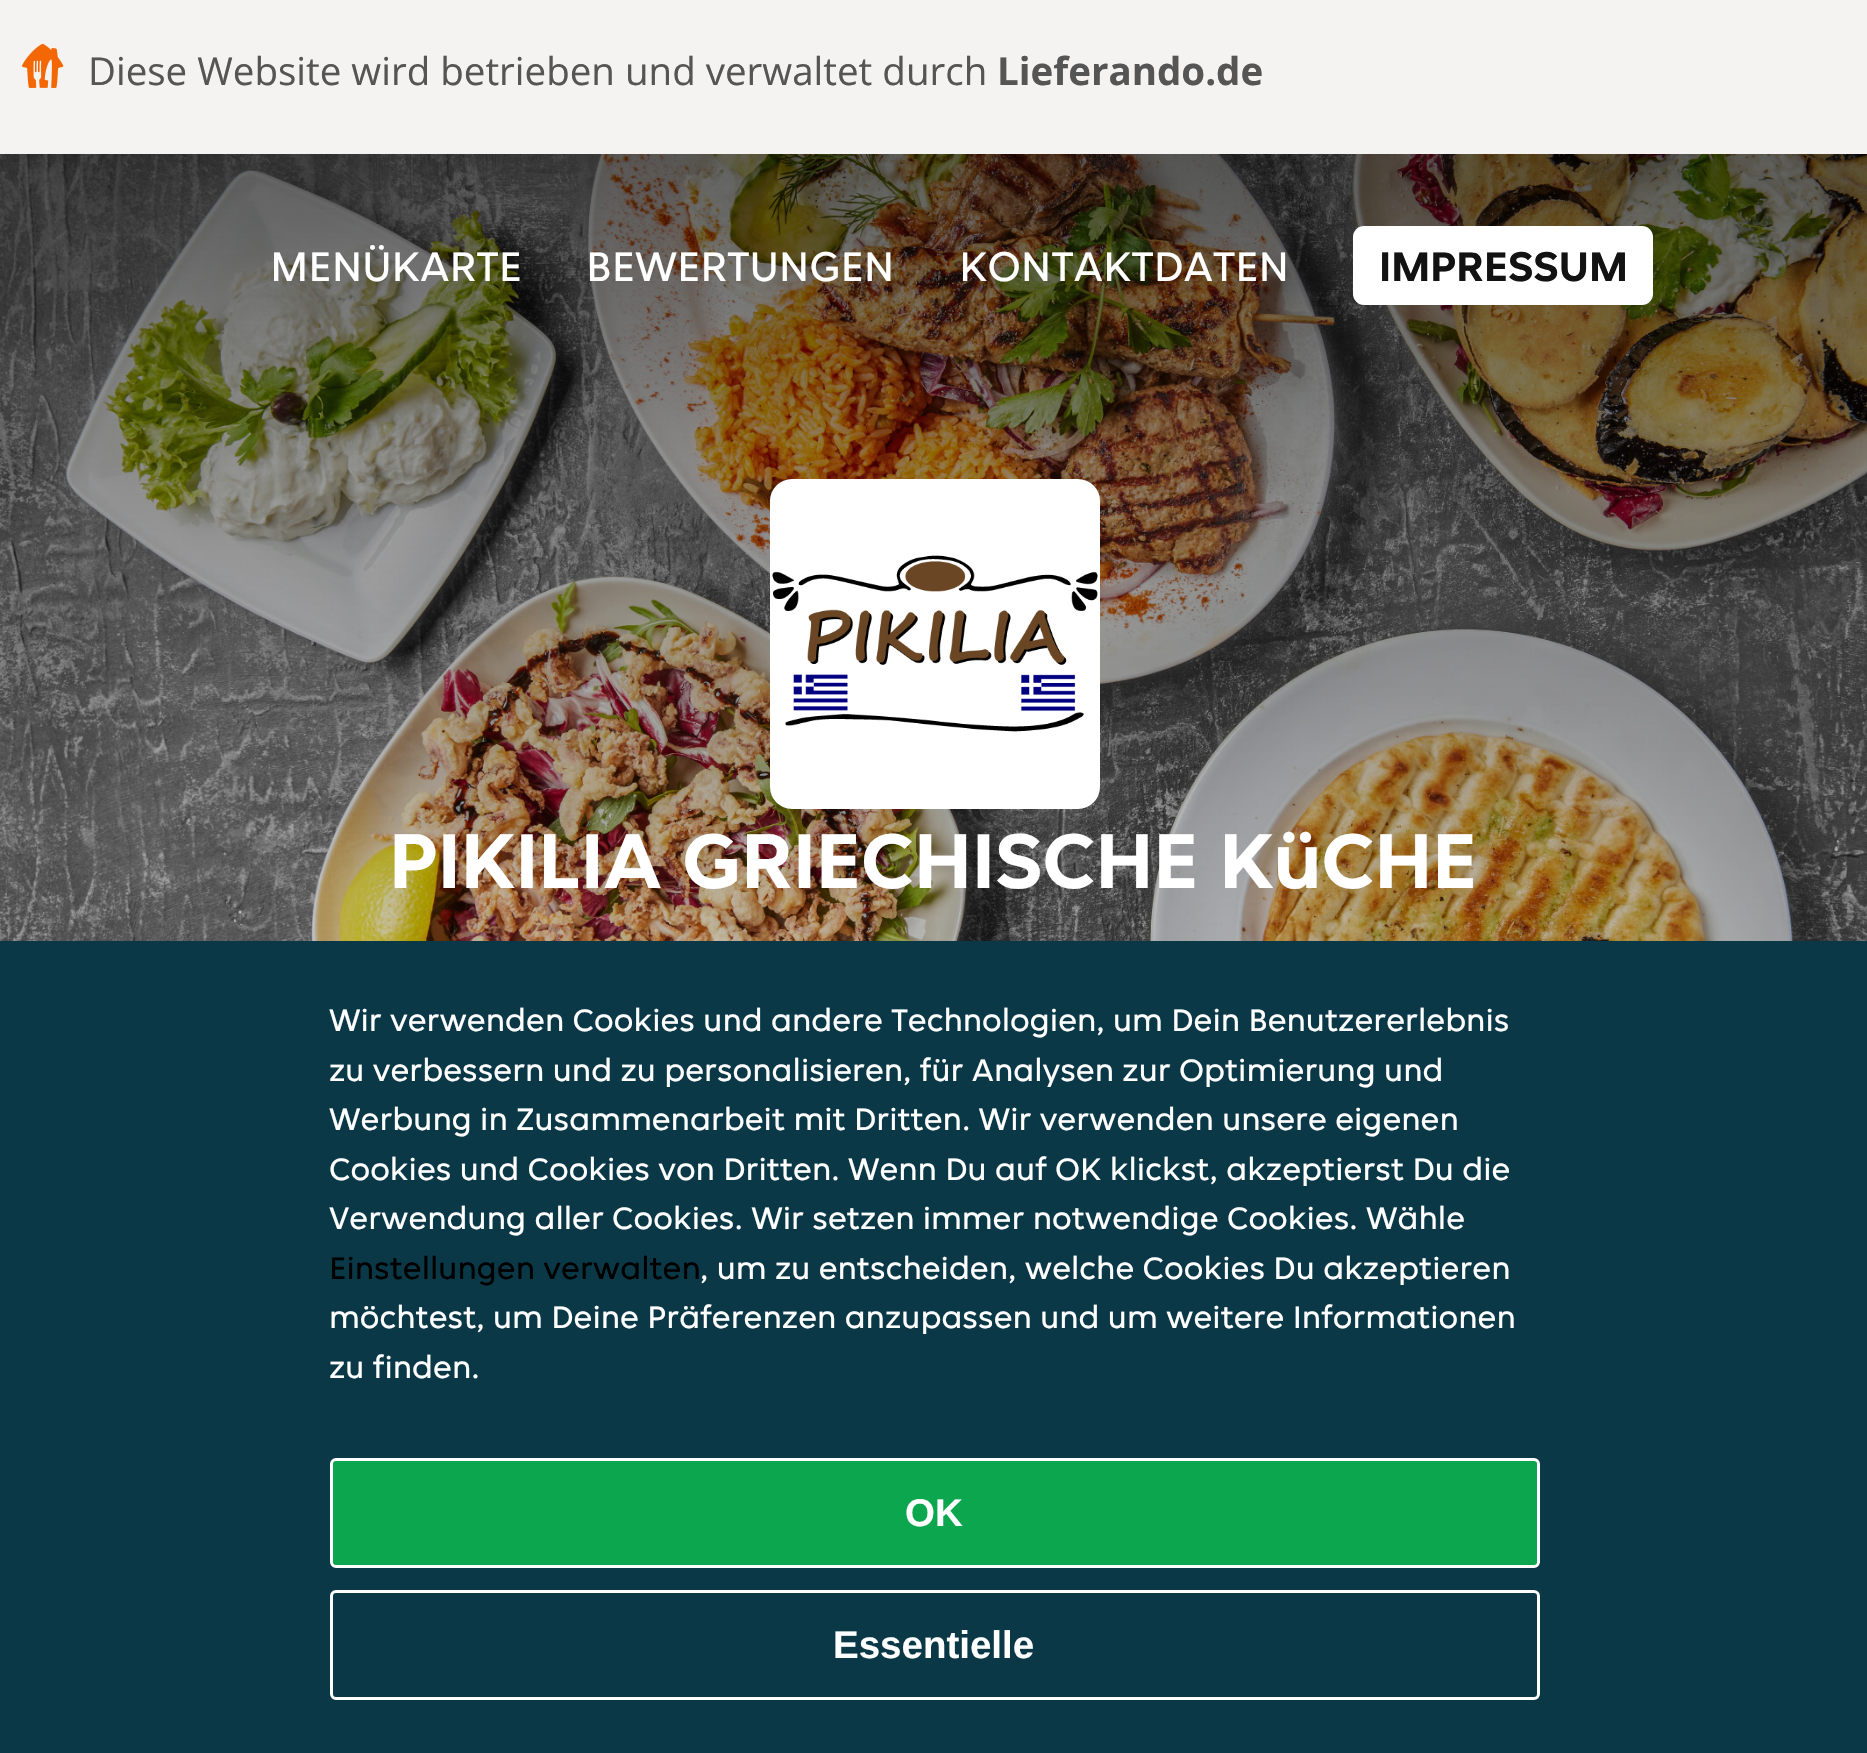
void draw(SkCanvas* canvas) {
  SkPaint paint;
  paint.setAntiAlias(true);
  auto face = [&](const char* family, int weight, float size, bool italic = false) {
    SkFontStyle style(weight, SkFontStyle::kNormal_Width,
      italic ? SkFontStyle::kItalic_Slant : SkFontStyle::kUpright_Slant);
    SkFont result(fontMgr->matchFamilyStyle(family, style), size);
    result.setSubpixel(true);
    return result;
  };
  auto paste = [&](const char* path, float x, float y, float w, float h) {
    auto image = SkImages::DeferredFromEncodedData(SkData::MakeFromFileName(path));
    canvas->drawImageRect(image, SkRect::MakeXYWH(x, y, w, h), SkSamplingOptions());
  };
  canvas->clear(0xffffffff);
  paint.setColor(0xfff5f3f1);
  canvas->drawRect(SkRect::MakeXYWH(0, 0, 1867, 154), paint);
  paste("img/1.png", 22, 44, 42, 44);
  paste("img/2.png", 0, 154, 1867, 787);
  {
    const SkColor colors[] = {0xb3000000, 0x66000000, 0x33000000, 0x00000000};
    const float stops[] = {0, 0.33f, 0.67f, 1};
    const SkPoint ends[] = {{934, 0}, {934, 1375}};
    paint.setShader(SkGradientShader::MakeLinear(ends, colors, stops, 4, SkTileMode::kClamp));
    paint.setAlpha(255);
  }
  canvas->drawRect(SkRect::MakeXYWH(0, 154, 1867, 787), paint);
  paint.setShader(nullptr);
  paint.setColor(0xffffffff);
  canvas->drawRoundRect(SkRect::MakeXYWH(1353, 226, 300, 79), 11, 11, paint);
  canvas->drawRoundRect(SkRect::MakeXYWH(770, 479, 330, 330), 22, 22, paint);
  paste("img/3.png", 772, 555, 326, 177);
  paint.setColor(0xff0a3847);
  canvas->drawRect(SkRect::MakeXYWH(0, 941, 1867, 812), paint);
  paint.setColor(0xff0ca64f);
  canvas->drawRoundRect(SkRect::MakeXYWH(331.5f, 1459.5f, 1207, 107), 4.5f, 4.5f, paint);
  paint.setStroke(true);
  paint.setStrokeWidth(3);
  paint.setColor(0xffffffff);
  canvas->drawRoundRect(SkRect::MakeXYWH(331.5f, 1459.5f, 1207, 107), 4.5f, 4.5f, paint);
  canvas->drawRoundRect(SkRect::MakeXYWH(331.5f, 1591.5f, 1207, 107), 4.5f, 4.5f, paint);
  auto f0 = face("Open Sans", 400, 38.5f);
  paint.setStroke(false);
  paint.setColor(0xff555555);
  canvas->drawString("Diese Website wird betrieben und verwaltet durch", 88, 85, f0, paint);
  auto f1 = face("Open Sans", 700, 38.5f);
  canvas->drawString("Lieferando.de", 997, 85, f1, paint);
  auto f2 = face("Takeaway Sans", 400, 44);
  paint.setColor(0xffffffff);
  {
    const struct { const char* s; float x, y; } items[] = {
      {"MENÜKARTE", 270, 281},
      {"BEWERTUNGEN", 586, 281},
      {"KONTAKTDATEN", 959, 281},
    };
    for (auto [s, x, y] : items) {
      canvas->drawString(s, x, y, f2, paint);
    }
  }
  auto f3 = face("Takeaway Sans", 700, 44);
  paint.setColor(0xff121212);
  canvas->drawString("IMPRESSUM", 1379, 281, f3, paint);
  auto f4 = face("Takeaway Sans", 700, 82.5f);
  paint.setColor(0xffffffff);
  canvas->drawString("PIKILIA GRIECHISCHE KüCHE", 389, 888, f4, paint);
  auto f5 = face("Takeaway Sans", 400, 33);
  {
    const struct { const char* s; float x, y; } items[] = {
      {"Wir verwenden Cookies und andere Technologien, um Dein Benutzererlebnis", 329, 1031},
      {"zu verbessern und zu personalisieren, für Analysen zur Optimierung und", 329, 1081},
      {"Werbung in Zusammenarbeit mit Dritten. Wir verwenden unsere eigenen", 329, 1130},
      {"Cookies und Cookies von Dritten. Wenn Du auf OK klickst, akzeptierst Du die", 329, 1180},
      {"Verwendung aller Cookies. Wir setzen immer notwendige Cookies. Wähle", 329, 1229},
    };
    for (auto [s, x, y] : items) {
      canvas->drawString(s, x, y, f5, paint);
    }
  }
  paint.setColor(0xff000000);
  canvas->drawString("Einstellungen verwalten", 329, 1279, f5, paint);
  paint.setColor(0xffffffff);
  {
    const struct { const char* s; float x, y; } items[] = {
      {", um zu entscheiden, welche Cookies Du akzeptieren", 700, 1279},
      {"möchtest, um Deine Präferenzen anzupassen und um weitere Informationen", 329, 1328},
      {"zu finden.", 329, 1378},
    };
    for (auto [s, x, y] : items) {
      canvas->drawString(s, x, y, f5, paint);
    }
  }
  auto f6 = face("Liberation Sans", 700, 38.5f);
  canvas->drawString("OK", 905, 1526, f6, paint);
  canvas->drawString("Essentielle", 833, 1658, f6, paint);
}
